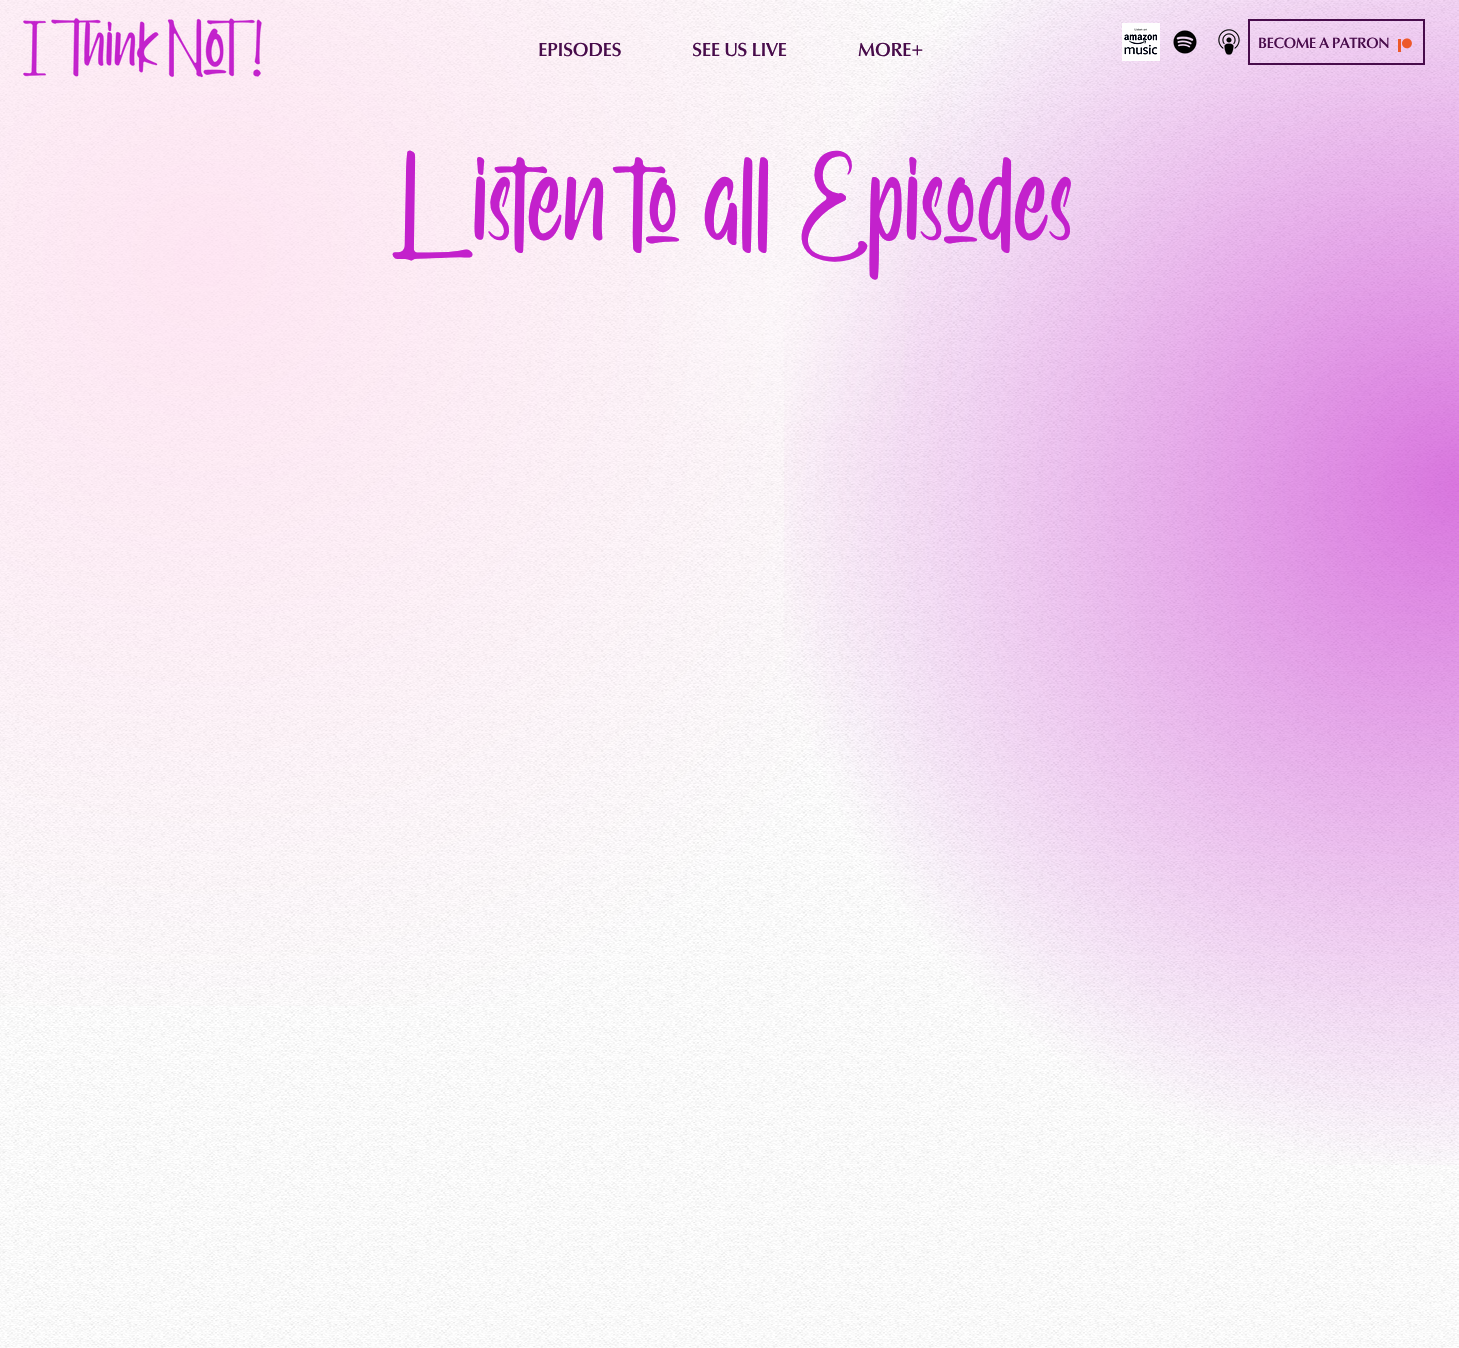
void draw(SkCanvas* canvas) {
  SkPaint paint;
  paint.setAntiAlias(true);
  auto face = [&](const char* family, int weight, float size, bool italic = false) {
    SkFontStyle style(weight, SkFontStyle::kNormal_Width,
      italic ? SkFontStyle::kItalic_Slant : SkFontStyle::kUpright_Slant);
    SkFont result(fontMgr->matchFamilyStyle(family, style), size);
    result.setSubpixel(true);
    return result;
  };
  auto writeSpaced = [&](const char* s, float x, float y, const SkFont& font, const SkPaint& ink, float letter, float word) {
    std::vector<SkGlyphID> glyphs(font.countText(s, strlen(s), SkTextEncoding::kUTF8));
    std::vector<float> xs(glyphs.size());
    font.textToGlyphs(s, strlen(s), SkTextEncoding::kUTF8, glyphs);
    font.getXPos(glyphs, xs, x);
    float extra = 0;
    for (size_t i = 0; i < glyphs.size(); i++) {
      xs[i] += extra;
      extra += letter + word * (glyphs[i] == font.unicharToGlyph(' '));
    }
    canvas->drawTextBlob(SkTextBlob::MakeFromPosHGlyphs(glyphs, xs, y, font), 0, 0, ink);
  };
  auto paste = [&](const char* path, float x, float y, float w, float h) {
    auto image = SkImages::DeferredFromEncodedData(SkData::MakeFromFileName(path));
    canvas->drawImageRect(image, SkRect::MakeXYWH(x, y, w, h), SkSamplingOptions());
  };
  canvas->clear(0xffffffff);
  paste("img/1.png", 0, 0, 1459, 1348);
  {
    const SkColor colors[] = {0xadffdbee, 0x00ffdbee};
    const float stops[] = {0, 0.5f};
    paint.setShader(SkGradientShader::MakeRadial({204, 257}, 1626, colors, stops, 2, SkTileMode::kClamp));
    paint.setAlpha(255);
  }
  canvas->drawRect(SkRect::MakeXYWH(0, 0, 952, 1006), paint);
  paste("img/2.png", 23, 18, 239, 60);
  {
    const SkColor colors[] = {0x9cc321cc, 0x00c321cc};
    const float stops[] = {0, 0.42f};
    paint.setShader(SkGradientShader::MakeRadial({1459, 486}, 1667, colors, stops, 2, SkTileMode::kClamp));
    paint.setAlpha(255);
  }
  canvas->drawRect(SkRect::MakeXYWH(784, 0, 675, 1165), paint);
  paste("img/3.png", 1122, 23, 38, 38);
  paste("img/4.png", 1173, 30, 24, 24);
  paste("img/5.png", 1218, 29, 22, 26);
  paint.setStroke(true);
  paint.setStrokeWidth(2);
  paint.setShader(nullptr);
  paint.setColor(0xff480c4b);
  canvas->drawRect(SkRect::MakeXYWH(1249, 20, 175, 44), paint);
  paste("img/6.png", 1398, 38, 14, 14);
  paint.setStroke(false);
  {
    const SkColor colors[] = {0x40ffffff, 0x00ffffff};
    const float stops[] = {0, 0.15f};
    paint.setShader(SkGradientShader::MakeRadial({764, 310}, 1244, colors, stops, 2, SkTileMode::kClamp));
    paint.setAlpha(255);
  }
  canvas->drawRect(SkRect::MakeXYWH(659, 208, 245, 215), paint);
  auto f0 = face("Optima", 600, 19);
  paint.setShader(nullptr);
  paint.setColor(0xff480c4b);
  {
    const struct { const char* s; float x, y; } items[] = {
      {"EPISODES", 538, 56},
      {"SEE US LIVE", 692, 56},
      {"MORE+", 858, 56},
    };
    for (auto [s, x, y] : items) {
      writeSpaced(s, x, y, f0, paint, -0.5f, 0);
    }
  }
  auto f1 = face("Optima", 600, 15);
  writeSpaced("BECOME A PATRON", 1258, 48, f1, paint, -0.5f, 0);
  auto f2 = face("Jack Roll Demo", 400, 132);
  paint.setColor(0xffc321cc);
  canvas->drawString("Listen to all Episodes", 386, 240, f2, paint);
}
